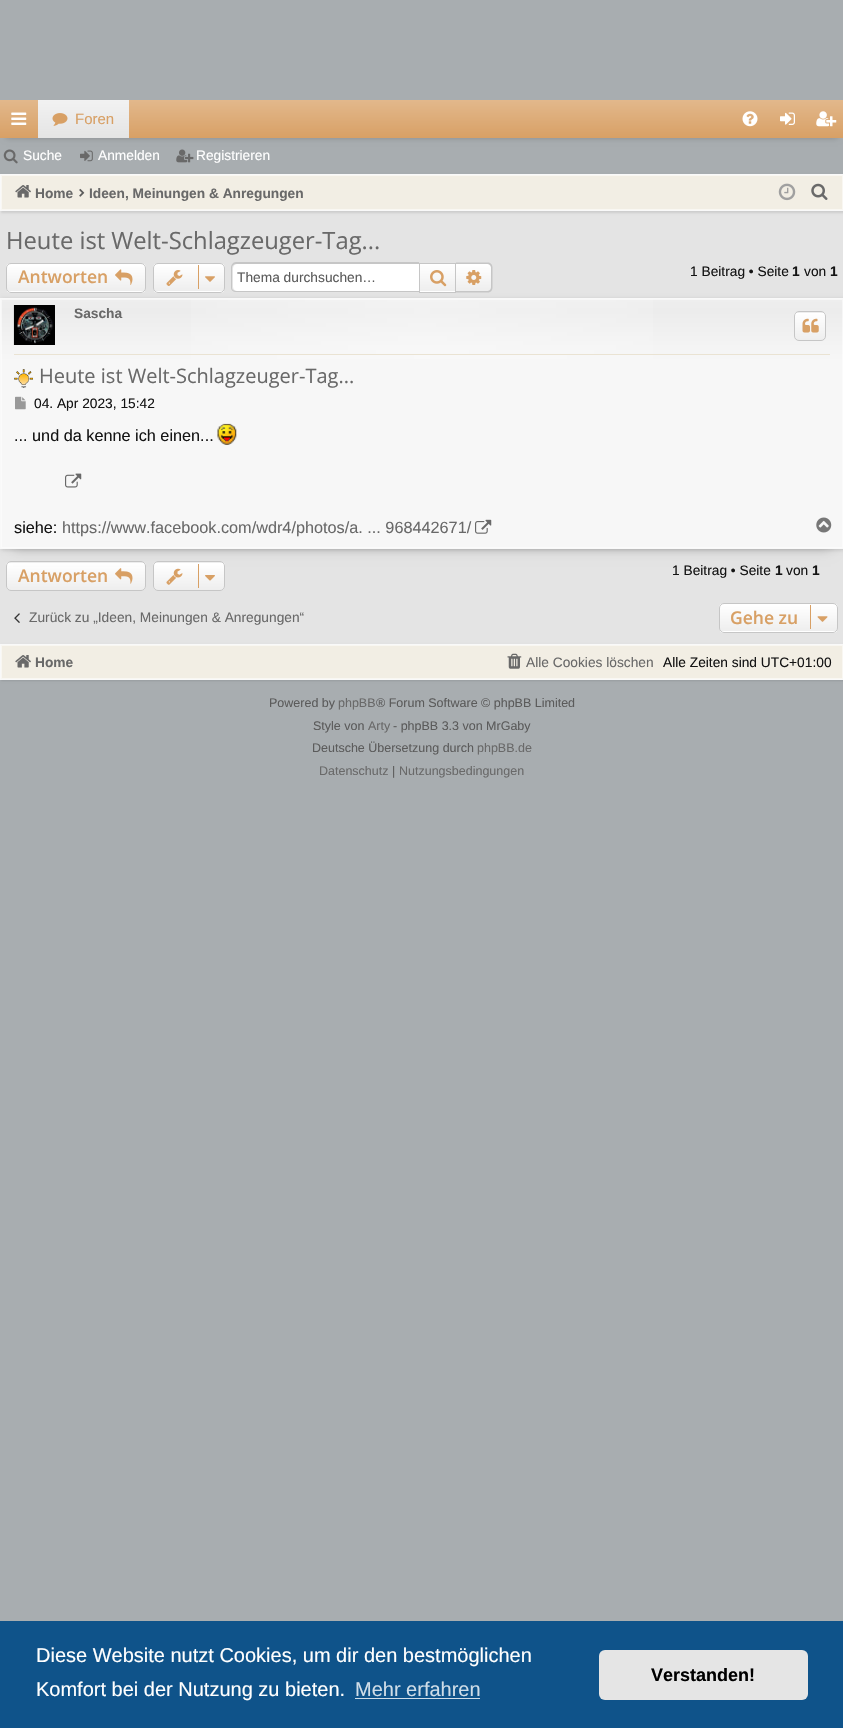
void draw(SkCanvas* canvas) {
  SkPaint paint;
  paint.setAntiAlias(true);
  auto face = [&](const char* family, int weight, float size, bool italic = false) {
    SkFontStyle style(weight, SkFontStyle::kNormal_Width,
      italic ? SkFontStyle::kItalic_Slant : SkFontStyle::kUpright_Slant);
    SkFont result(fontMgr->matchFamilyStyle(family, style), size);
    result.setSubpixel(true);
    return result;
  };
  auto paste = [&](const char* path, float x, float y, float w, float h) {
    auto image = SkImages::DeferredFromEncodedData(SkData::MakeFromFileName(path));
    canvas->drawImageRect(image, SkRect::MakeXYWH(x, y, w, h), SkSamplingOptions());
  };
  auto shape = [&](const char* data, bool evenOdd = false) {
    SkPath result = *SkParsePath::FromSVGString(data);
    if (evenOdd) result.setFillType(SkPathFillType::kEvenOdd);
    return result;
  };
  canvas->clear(0xffa8adb0);
  paint.setColor(0x33000000);
  paint.setMaskFilter(SkMaskFilter::MakeBlur(kNormal_SkBlurStyle, 3));
  canvas->drawRect(SkRect::MakeXYWH(6, 113, 832, 25), paint);
  paint.setMaskFilter(nullptr);
  {
    const SkColor colors[] = {0xffe2b88c, 0xffd8a065};
    const float stops[] = {0, 1};
    const SkPoint ends[] = {{422, 100}, {422, 138}};
    paint.setShader(SkGradientShader::MakeLinear(ends, colors, stops, 2, SkTileMode::kClamp));
    paint.setAlpha(255);
  }
  canvas->drawRect(SkRect::MakeXYWH(0, 100, 843, 38), paint);
  paste("img/1.png", 11, 112, 16, 13);
  {
    const SkColor colors[] = {0xfff2f2f2, 0xffe4e4e4};
    const float stops[] = {0, 1};
    const SkPoint ends[] = {{83, 100}, {83, 138}};
    paint.setShader(SkGradientShader::MakeLinear(ends, colors, stops, 2, SkTileMode::kClamp));
    paint.setAlpha(255);
  }
  canvas->drawRect(SkRect::MakeXYWH(38, 100, 91, 38), paint);
  paste("img/2.png", 52, 113, 16, 13);
  paste("img/3.png", 742, 111, 16, 16);
  paste("img/4.png", 780, 112, 15, 13);
  paste("img/5.png", 816, 111, 21, 16);
  paste("img/6.png", 3, 149, 15, 15);
  paste("img/7.png", 80, 150, 13, 12);
  paste("img/8.png", 176, 149, 18, 14);
  paint.setShader(nullptr);
  paint.setColor(0xffe4e4e4);
  canvas->drawRect(SkRect::MakeXYWH(0, 211, 843, 433), paint);
  paint.setColor(0x1a000000);
  paint.setMaskFilter(SkMaskFilter::MakeBlur(kNormal_SkBlurStyle, 1));
  canvas->drawRect(SkRect::MakeXYWH(1, 175, 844, 38), paint);
  paint.setMaskFilter(nullptr);
  paint.setColor(0xfff2eee4);
  canvas->drawRect(SkRect::MakeXYWH(1.5f, 175.5f, 841, 34), paint);
  paint.setStroke(true);
  paint.setStrokeWidth(1);
  paint.setColor(0xfff9f7f2);
  canvas->drawRect(SkRect::MakeXYWH(1.5f, 175.5f, 841, 34), paint);
  paint.setColor(0xfff9f9f9);
  canvas->drawRect(SkRect::MakeXYWH(0.5f, 174.5f, 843, 36), paint);
  paste("img/9.png", 15, 185, 16, 13);
  paste("img/10.png", 79, 188, 6, 9);
  paste("img/11.png", 778, 183, 18, 18);
  paste("img/12.png", 811, 183, 17, 17);
  paint.setStroke(false);
  paint.setColor(0xffeeeeee);
  canvas->drawRoundRect(SkRect::MakeXYWH(6, 263, 140, 30), 5, 5, paint);
  canvas->save();
  canvas->clipPath(shape("M11 263H141C144 263 146 265 146 268V288C146 291 144 293 141 293H11C8 293 6 291 6 288V268C6 265 8 263 11 263Z"), true);
  {
    const SkColor colors[] = {0xffffffff, 0x00ffffff};
    const float stops[] = {0, 1};
    const SkPoint ends[] = {{76, 264}, {76, 291}};
    paint.setShader(SkGradientShader::MakeLinear(ends, colors, stops, 2, SkTileMode::kClamp));
    paint.setAlpha(255);
  }
  canvas->drawRect(SkRect::MakeXYWH(6, 264, 140, 26), paint);
  {
    const SkColor colors[] = {0xffffffff, 0x00ffffff};
    const float stops[] = {0, 1};
    const SkPoint ends[] = {{76, 291}, {76, 319}};
    paint.setShader(SkGradientShader::MakeLinear(ends, colors, stops, 2, SkTileMode::kClamp));
    paint.setAlpha(255);
  }
  canvas->drawRect(SkRect::MakeXYWH(6, 291, 140, 2), paint);
  canvas->restore();
  paint.setStroke(true);
  paint.setShader(nullptr);
  paint.setColor(0xffc6c6c6);
  canvas->drawRoundRect(SkRect::MakeXYWH(6.5f, 263.5f, 139, 29), 4.5f, 4.5f, paint);
  paste("img/13.png", 115, 269, 18, 16);
  paint.setStroke(false);
  paint.setColor(0xffeeeeee);
  canvas->drawRoundRect(SkRect::MakeXYWH(153, 263, 72, 30), 5, 5, paint);
  canvas->save();
  canvas->clipPath(shape("M158 263H220C223 263 225 265 225 268V288C225 291 223 293 220 293H158C155 293 153 291 153 288V268C153 265 155 263 158 263Z"), true);
  {
    const SkColor colors[] = {0xffffffff, 0x00ffffff};
    const float stops[] = {0, 1};
    const SkPoint ends[] = {{189, 264}, {189, 291}};
    paint.setShader(SkGradientShader::MakeLinear(ends, colors, stops, 2, SkTileMode::kClamp));
    paint.setAlpha(255);
  }
  canvas->drawRect(SkRect::MakeXYWH(153, 264, 72, 26), paint);
  {
    const SkColor colors[] = {0xffffffff, 0x00ffffff};
    const float stops[] = {0, 1};
    const SkPoint ends[] = {{189, 291}, {189, 319}};
    paint.setShader(SkGradientShader::MakeLinear(ends, colors, stops, 2, SkTileMode::kClamp));
    paint.setAlpha(255);
  }
  canvas->drawRect(SkRect::MakeXYWH(153, 291, 72, 2), paint);
  canvas->restore();
  paint.setStroke(true);
  paint.setShader(nullptr);
  paint.setColor(0xffc6c6c6);
  canvas->drawRoundRect(SkRect::MakeXYWH(153.5f, 263.5f, 71, 29), 4.5f, 4.5f, paint);
  paste("img/14.png", 166, 270, 17, 16);
  paint.setStroke(false);
  paint.setColor(0xffd8a065);
  canvas->drawRect(SkRect::MakeXYWH(198, 265, 1, 24), paint);
  paste("img/15.png", 205, 276, 10, 6);
  paint.setColor(0xffffffff);
  canvas->drawPath(shape("M237 264H419V291H237C235 291 233 289 233 287V268C233 266 235 264 237 264Z"), paint);
  paint.setColor(0xffc6c6c6);
  canvas->drawPath(shape("M236 262H419V292H236C233 292 231 290 231 288V268C231 265 233 262 236 262ZM236 264H419V291H236C234 291 232 290 232 288V268C232 265 234 264 236 264Z", true), paint);
  {
    const SkColor colors[] = {0xffffffff, 0xffeeeeee};
    const float stops[] = {0, 1};
    const SkPoint ends[] = {{438, 264}, {438, 291}};
    paint.setShader(SkGradientShader::MakeLinear(ends, colors, stops, 2, SkTileMode::kClamp));
    paint.setAlpha(255);
  }
  canvas->drawRect(SkRect::MakeXYWH(420, 264, 35, 27), paint);
  {
    const SkColor colors[] = {0xffffffff, 0xffeeeeee};
    const float stops[] = {0, 1};
    const SkPoint ends[] = {{438, 291}, {438, 319}};
    paint.setShader(SkGradientShader::MakeLinear(ends, colors, stops, 2, SkTileMode::kClamp));
    paint.setAlpha(255);
  }
  canvas->drawRect(SkRect::MakeXYWH(419, 291, 37, 1), paint);
  paint.setStroke(true);
  paint.setShader(nullptr);
  paint.setColor(0xffc6c6c6);
  canvas->drawRect(SkRect::MakeXYWH(419.5f, 263.5f, 36, 29), paint);
  paste("img/16.png", 430, 270, 17, 17);
  paint.setStroke(false);
  paint.setColor(0xffeeeeee);
  canvas->drawPath(shape("M456 264H487C489 264 491 266 491 268V287C491 289 489 291 487 291H456Z"), paint);
  {
    const SkColor colors[] = {0xffffffff, 0x00ffffff};
    const float stops[] = {0, 1};
    const SkPoint ends[] = {{474, 264}, {474, 291}};
    paint.setShader(SkGradientShader::MakeLinear(ends, colors, stops, 2, SkTileMode::kClamp));
    paint.setAlpha(255);
  }
  canvas->drawPath(shape("M456 264H487C489 264 491 266 491 268V287C491 289 489 291 487 291H456Z"), paint);
  paint.setShader(nullptr);
  paint.setColor(0xffc6c6c6);
  canvas->drawPath(shape("M456 262.5H487.5C490.5 262.5 492.5 264.5 492.5 267.5V287.5C492.5 290.5 490.5 292.5 487.5 292.5H456ZM456 264H487.5C489.5 264 491 265.5 491 267.5V287.5C491 289.5 489.5 291 487.5 291H456Z", true), paint);
  paste("img/17.png", 466, 270, 16, 15);
  paint.setColor(0xffeeeeee);
  canvas->drawRoundRect(SkRect::MakeXYWH(6, 561, 140, 30), 5, 5, paint);
  canvas->save();
  canvas->clipPath(shape("M11 561H141C144 561 146 563 146 566V586C146 589 144 591 141 591H11C8 591 6 589 6 586V566C6 563 8 561 11 561Z"), true);
  {
    const SkColor colors[] = {0xffffffff, 0x00ffffff};
    const float stops[] = {0, 1};
    const SkPoint ends[] = {{76, 563}, {76, 590}};
    paint.setShader(SkGradientShader::MakeLinear(ends, colors, stops, 2, SkTileMode::kClamp));
    paint.setAlpha(255);
  }
  canvas->drawRect(SkRect::MakeXYWH(6, 563, 140, 26), paint);
  canvas->restore();
  paint.setStroke(true);
  paint.setShader(nullptr);
  paint.setColor(0xffc6c6c6);
  canvas->drawRoundRect(SkRect::MakeXYWH(6.5f, 561.5f, 139, 29), 4.5f, 4.5f, paint);
  paint.setStroke(false);
  paint.setColor(0x33000000);
  paint.setMaskFilter(SkMaskFilter::MakeBlur(kNormal_SkBlurStyle, 6));
  canvas->drawRect(SkRect::MakeXYWH(13, 323, 818, 226), paint);
  paint.setMaskFilter(nullptr);
  paint.setColor(0x26000000);
  paint.setMaskFilter(SkMaskFilter::MakeBlur(kNormal_SkBlurStyle, 2));
  canvas->drawRect(SkRect::MakeXYWH(1, 299, 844, 251), paint);
  paint.setMaskFilter(nullptr);
  {
    const SkColor colors[] = {0xffeeeeee, 0xffececec, 0xfff7f7f7};
    const float stops[] = {0, 0.05f, 0.25f};
    const SkPoint ends[] = {{422, 299}, {422, 548}};
    paint.setShader(SkGradientShader::MakeLinear(ends, colors, stops, 3, SkTileMode::kClamp));
    paint.setAlpha(255);
  }
  canvas->drawRect(SkRect::MakeXYWH(1, 299, 842, 249), paint);
  {
    const SkColor colors[] = {0x00ffffff, 0x4dffffff, 0x00ffffff};
    const float stops[] = {0, 0.5f, 1};
    const SkPoint ends[] = {{1.2f, 423}, {843, 423}};
    paint.setShader(SkGradientShader::MakeLinear(ends, colors, stops, 3, SkTileMode::kClamp));
    paint.setAlpha(255);
  }
  canvas->drawRect(SkRect::MakeXYWH(191, 299, 462, 60), paint);
  paint.setStroke(true);
  paint.setShader(nullptr);
  paint.setColor(0x80ffffff);
  canvas->drawRect(SkRect::MakeXYWH(1.5f, 299.5f, 841, 248), paint);
  paint.setColor(0xfff9f9f9);
  canvas->drawRect(SkRect::MakeXYWH(0.5f, 298.5f, 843, 250), paint);
  paint.setStroke(false);
  paint.setColor(0xffeae3d3);
  canvas->drawRect(SkRect::MakeXYWH(14, 354, 816, 1), paint);
  paste("img/18.png", 13, 305, 42, 40);
  paint.setColor(0xffeeeeee);
  canvas->drawRoundRect(SkRect::MakeXYWH(794, 311, 32, 30), 5, 5, paint);
  canvas->save();
  canvas->clipPath(shape("M799 311H821C824 311 826 313 826 316V336C826 339 824 341 821 341H799C796 341 794 339 794 336V316C794 313 796 311 799 311Z"), true);
  {
    const SkColor colors[] = {0xffffffff, 0xffeeeeee};
    const float stops[] = {0, 1};
    const SkPoint ends[] = {{810, 313}, {810, 340}};
    paint.setShader(SkGradientShader::MakeLinear(ends, colors, stops, 2, SkTileMode::kClamp));
    paint.setAlpha(255);
  }
  canvas->drawRect(SkRect::MakeXYWH(794, 313, 32, 27), paint);
  canvas->restore();
  paint.setStroke(true);
  paint.setShader(nullptr);
  paint.setColor(0xffc6c6c6);
  canvas->drawRoundRect(SkRect::MakeXYWH(794.5f, 311.5f, 31, 29), 4.5f, 4.5f, paint);
  paste("img/19.png", 802, 318, 17, 15);
  paste("img/20.png", 14, 369, 19, 19);
  paste("img/21.png", 15, 396, 11, 14);
  paste("img/22.png", 217, 423, 20, 22);
  paste("img/23.png", 65, 473, 17, 15);
  paste("img/24.png", 475, 519, 17, 15);
  paste("img/25.png", 816, 517, 16, 16);
  paste("img/26.png", 115, 568, 18, 16);
  paint.setStroke(false);
  paint.setColor(0xffeeeeee);
  canvas->drawRoundRect(SkRect::MakeXYWH(153, 561, 72, 30), 5, 5, paint);
  canvas->save();
  canvas->clipPath(shape("M158 561H220C223 561 225 563 225 566V586C225 589 223 591 220 591H158C155 591 153 589 153 586V566C153 563 155 561 158 561Z"), true);
  {
    const SkColor colors[] = {0xffffffff, 0x00ffffff};
    const float stops[] = {0, 1};
    const SkPoint ends[] = {{189, 563}, {189, 590}};
    paint.setShader(SkGradientShader::MakeLinear(ends, colors, stops, 2, SkTileMode::kClamp));
    paint.setAlpha(255);
  }
  canvas->drawRect(SkRect::MakeXYWH(153, 563, 72, 26), paint);
  canvas->restore();
  paint.setStroke(true);
  paint.setShader(nullptr);
  paint.setColor(0xffc6c6c6);
  canvas->drawRoundRect(SkRect::MakeXYWH(153.5f, 561.5f, 71, 29), 4.5f, 4.5f, paint);
  paste("img/27.png", 166, 568, 17, 17);
  paint.setStroke(false);
  paint.setColor(0xffd8a065);
  canvas->drawRect(SkRect::MakeXYWH(198, 564, 1, 24), paint);
  paste("img/28.png", 205, 575, 10, 6);
  paste("img/29.png", 14, 613, 6, 10);
  paint.setColor(0xffeeeeee);
  canvas->drawRoundRect(SkRect::MakeXYWH(719, 603, 119, 30), 5, 5, paint);
  canvas->save();
  canvas->clipPath(shape("M724 603H833C836 603 838 605 838 608V628C838 631 836 633 833 633H724C721 633 719 631 719 628V608C719 605 721 603 724 603Z"), true);
  {
    const SkColor colors[] = {0xffffffff, 0x00ffffff};
    const float stops[] = {0, 1};
    const SkPoint ends[] = {{778, 604}, {778, 631}};
    paint.setShader(SkGradientShader::MakeLinear(ends, colors, stops, 2, SkTileMode::kClamp));
    paint.setAlpha(255);
  }
  canvas->drawRect(SkRect::MakeXYWH(719, 604, 119, 26), paint);
  {
    const SkColor colors[] = {0xffffffff, 0x00ffffff};
    const float stops[] = {0, 1};
    const SkPoint ends[] = {{778, 631}, {778, 659}};
    paint.setShader(SkGradientShader::MakeLinear(ends, colors, stops, 2, SkTileMode::kClamp));
    paint.setAlpha(255);
  }
  canvas->drawRect(SkRect::MakeXYWH(719, 631, 119, 2), paint);
  canvas->restore();
  paint.setStroke(true);
  paint.setShader(nullptr);
  paint.setColor(0xffc6c6c6);
  canvas->drawRoundRect(SkRect::MakeXYWH(719.5f, 603.5f, 118, 29), 4.5f, 4.5f, paint);
  paint.setStroke(false);
  paint.setColor(0xffd8a065);
  canvas->drawRect(SkRect::MakeXYWH(810, 605, 1, 24), paint);
  paste("img/30.png", 817, 616, 11, 6);
  paint.setColor(0x1a000000);
  paint.setMaskFilter(SkMaskFilter::MakeBlur(kNormal_SkBlurStyle, 1));
  canvas->drawRect(SkRect::MakeXYWH(1, 645, 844, 36), paint);
  paint.setMaskFilter(nullptr);
  paint.setColor(0xfff2eee4);
  canvas->drawRect(SkRect::MakeXYWH(1.5f, 645.5f, 841, 33), paint);
  paint.setStroke(true);
  paint.setColor(0xfff9f7f2);
  canvas->drawRect(SkRect::MakeXYWH(1.5f, 645.5f, 841, 33), paint);
  paint.setColor(0xfff9f9f9);
  canvas->drawRect(SkRect::MakeXYWH(0.5f, 644.5f, 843, 35), paint);
  paste("img/9.png", 15, 655, 16, 13);
  paste("img/31.png", 507, 653, 15, 16);
  paint.setStroke(false);
  paint.setColor(0xff0f538a);
  canvas->drawRect(SkRect::MakeXYWH(0, 1621, 843, 107), paint);
  paint.setColor(0xffcfdde8);
  canvas->drawRect(SkRect::MakeXYWH(355, 1698, 125, 1), paint);
  paint.setColor(0xffe5e5e5);
  canvas->drawRoundRect(SkRect::MakeXYWH(599, 1650, 209, 50), 6, 6, paint);
  auto f0 = face("Liberation Sans", 400, 15);
  paint.setColor(0xffd8a065);
  canvas->drawString("Foren", 75, 124, f0, paint);
  auto f1 = face("Liberation Sans", 400, 13.75f);
  paint.setColor(0xffffffff);
  {
    const struct { const char* s; float x, y; } items[] = {
      {"Suche", 23, 160},
      {"Anmelden", 98, 160},
      {"Registrieren", 196, 160},
    };
    for (auto [s, x, y] : items) {
      canvas->drawString(s, x, y, f1, paint);
    }
  }
  auto f2 = face("Liberation Sans", 700, 13.75f);
  paint.setColor(0xff696969);
  canvas->drawString("Home", 35, 198, f2, paint);
  canvas->drawString("Ideen, Meinungen & Anregungen", 89, 198, f2, paint);
  auto f3 = face("Open Sans", 400, 23.75f);
  canvas->drawString("Heute ist Welt-Schlagzeuger-Tag...", 6, 249, f3, paint);
  auto f4 = face("Open Sans", 600, 17.5f);
  paint.setColor(0xffd8a065);
  canvas->drawString("Antworten", 18, 283, f4, paint);
  paint.setColor(0xff5b5b5b);
  canvas->drawString("Thema durchsuchen…", 237, 282, f1, paint);
  paint.setColor(0xff141414);
  canvas->drawString("1 Beitrag • Seite", 690, 276, f1, paint);
  canvas->drawString("1", 792, 276, f2, paint);
  canvas->drawString("von", 804, 276, f1, paint);
  canvas->drawString("1", 830, 276, f2, paint);
  paint.setColor(0xff696969);
  canvas->drawString("Sascha", 74, 318, f2, paint);
  auto f5 = face("Open Sans", 400, 20);
  canvas->drawString("Heute ist Welt-Schlagzeuger-Tag...", 39, 383, f5, paint);
  paint.setColor(0xff141414);
  canvas->drawString("04. Apr 2023, 15:42", 34, 408, f1, paint);
  auto f6 = face("Liberation Sans", 400, 16.25f);
  canvas->drawString("... und da kenne ich einen...", 14, 441, f6, paint);
  canvas->drawString("siehe:", 14, 533, f6, paint);
  paint.setColor(0xff696969);
  canvas->drawString("https://www.facebook.com/wdr4/photos/a. ... 968442671/", 62, 533, f6, paint);
  paint.setColor(0xffd8a065);
  canvas->drawString("Antworten", 18, 582, f4, paint);
  paint.setColor(0xff141414);
  canvas->drawString("1 Beitrag • Seite", 672, 575, f1, paint);
  canvas->drawString("1", 775, 575, f2, paint);
  canvas->drawString("von", 786, 575, f1, paint);
  canvas->drawString("1", 812, 575, f2, paint);
  paint.setColor(0xff696969);
  canvas->drawString("Zurück zu „Ideen, Meinungen & Anregungen“", 29, 622, f1, paint);
  paint.setColor(0xffd8a065);
  canvas->drawString("Gehe zu", 730, 624, f4, paint);
  paint.setColor(0xff696969);
  canvas->drawString("Home", 35, 667, f2, paint);
  canvas->drawString("Alle Cookies löschen", 526, 667, f1, paint);
  paint.setColor(0xff141414);
  canvas->drawString("Alle Zeiten sind UTC+01:00", 663, 667, f1, paint);
  auto f7 = face("Liberation Sans", 400, 12.5f);
  paint.setColor(0xff5b5b5b);
  canvas->drawString("Powered by", 269, 707, f7, paint);
  paint.setColor(0xff696969);
  canvas->drawString("phpBB", 338, 707, f7, paint);
  paint.setColor(0xff5b5b5b);
  canvas->drawString("® Forum Software © phpBB Limited", 376, 707, f7, paint);
  canvas->drawString("Style von", 313, 730, f7, paint);
  paint.setColor(0xff696969);
  canvas->drawString("Arty", 368, 730, f7, paint);
  paint.setColor(0xff5b5b5b);
  canvas->drawString("- phpBB 3.3 von MrGaby", 393, 730, f7, paint);
  canvas->drawString("Deutsche Übersetzung durch", 312, 752, f7, paint);
  paint.setColor(0xff696969);
  canvas->drawString("phpBB.de", 477, 752, f7, paint);
  canvas->drawString("Datenschutz", 319, 775, f7, paint);
  paint.setColor(0xff5b5b5b);
  canvas->drawString("|", 392, 775, f7, paint);
  paint.setColor(0xff696969);
  canvas->drawString("Nutzungsbedingungen", 399, 775, f7, paint);
  auto f8 = face("Liberation Sans", 400, 20);
  paint.setColor(0xffffffff);
  canvas->drawString("Diese Website nutzt Cookies, um dir den bestmöglichen", 36, 1662, f8, paint);
  canvas->drawString("Komfort bei der Nutzung zu bieten.", 36, 1696, f8, paint);
  paint.setColor(0xffcfdde8);
  canvas->drawString("Mehr erfahren", 355, 1696, f8, paint);
  auto f9 = face("Liberation Sans", 700, 18);
  paint.setColor(0xff000000);
  canvas->drawString("Verstanden!", 651, 1681, f9, paint);
}
